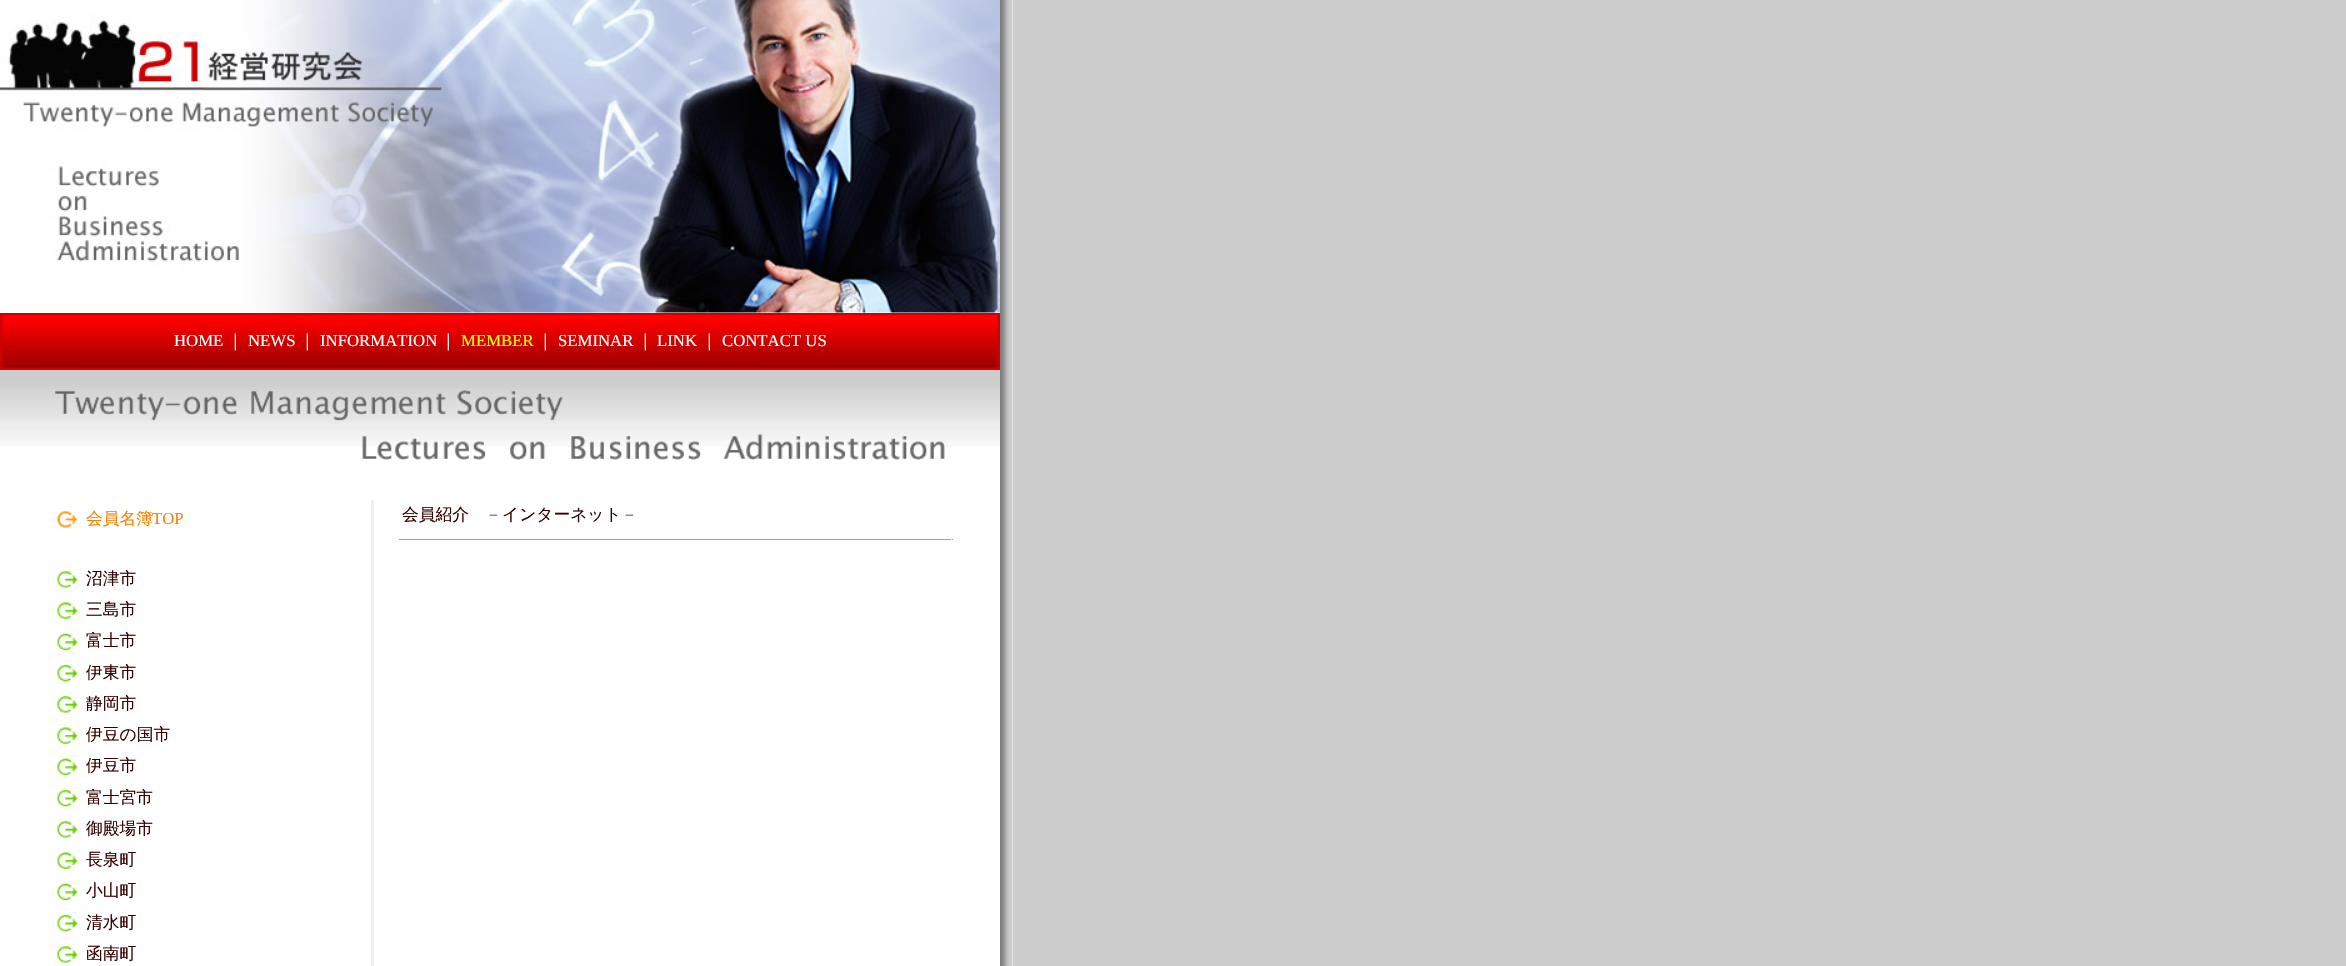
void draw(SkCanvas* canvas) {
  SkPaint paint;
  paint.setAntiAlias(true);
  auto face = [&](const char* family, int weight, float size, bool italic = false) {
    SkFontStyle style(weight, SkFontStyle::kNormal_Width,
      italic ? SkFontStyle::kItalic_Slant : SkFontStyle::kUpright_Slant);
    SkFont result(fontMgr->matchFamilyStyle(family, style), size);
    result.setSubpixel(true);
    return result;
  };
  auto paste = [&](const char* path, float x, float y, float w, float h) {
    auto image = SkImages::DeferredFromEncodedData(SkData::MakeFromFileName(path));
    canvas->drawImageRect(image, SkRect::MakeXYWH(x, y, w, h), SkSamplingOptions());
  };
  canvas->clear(0xffcccccc);
  paint.setColor(0xffffffff);
  canvas->drawRect(SkRect::MakeXYWH(0, 0, 1013, 966), paint);
  paste("img/1.png", 0, 0, 1000, 313);
  paste("img/2.png", 1000, 0, 13, 966);
  paint.setColor(0xffce0000);
  canvas->drawRect(SkRect::MakeXYWH(0, 313, 1000, 57), paint);
  paste("img/3.png", 2, 315, 996, 53);
  paste("img/4.png", 0, 370, 1000, 77);
  paste("img/5.png", 55, 390, 890, 70);
  paste("img/6.png", 57, 511, 21, 17);
  paste("img/7.png", 57, 571, 21, 17);
  paste("img/8.png", 57, 602, 21, 17);
  paste("img/9.png", 57, 633, 21, 18);
  paste("img/10.png", 57, 664, 21, 18);
  paste("img/7.png", 57, 696, 21, 17);
  paste("img/8.png", 57, 727, 21, 17);
  paste("img/9.png", 57, 758, 21, 18);
  paste("img/10.png", 57, 789, 21, 18);
  paste("img/7.png", 57, 821, 21, 17);
  paste("img/8.png", 57, 852, 21, 17);
  paste("img/9.png", 57, 883, 21, 18);
  paste("img/10.png", 57, 914, 21, 18);
  paste("img/7.png", 57, 946, 21, 17);
  {
    const struct { float x, y, w, h; SkColor color; } items[] = {
      {371, 500, 3, 466, 0xffeeeeee},
      {399, 539, 554, 1, 0xff9f9f9f},
      {951, 539, 1, 1, 0xffeeeeee},
    };
    for (auto [x, y, w, h, color] : items) {
      paint.setColor(color);
      canvas->drawRect(SkRect::MakeXYWH(x, y, w, h), paint);
    }
  }
  auto f0 = face("Liberation Serif", 400, 16.75f);
  paint.setColor(0xffffffff);
  canvas->drawString("HOME", 174, 346, f0, paint);
  auto f1 = face("WenQuanYi Zen Hei", 500, 16.75f);
  canvas->drawString("｜", 227, 346, f1, paint);
  canvas->drawString("NEWS", 248, 346, f0, paint);
  canvas->drawString("｜", 299, 346, f1, paint);
  canvas->drawString("INFORMATION", 320, 346, f0, paint);
  canvas->drawString("｜", 440, 346, f1, paint);
  paint.setColor(0xffffff00);
  canvas->drawString("MEMBER", 461, 346, f0, paint);
  paint.setColor(0xffffffff);
  canvas->drawString("｜", 537, 346, f1, paint);
  canvas->drawString("SEMINAR", 558, 346, f0, paint);
  canvas->drawString("｜", 637, 346, f1, paint);
  canvas->drawString("LINK", 657, 346, f0, paint);
  canvas->drawString("｜", 701, 346, f1, paint);
  canvas->drawString("CONTACT US", 722, 346, f0, paint);
  paint.setColor(0xffff8000);
  canvas->drawString("会員名簿", 86, 524, f1, paint);
  canvas->drawString("TOP", 152, 524, f0, paint);
  paint.setColor(0xff330000);
  {
    const struct { const char* s; float x, y; } items[] = {
      {"沼津市", 86, 584},
      {"三島市", 86, 615},
      {"富士市", 86, 646},
      {"伊東市", 86, 678},
      {"静岡市", 86, 709},
      {"伊豆の国市", 86, 740},
      {"伊豆市", 86, 771},
      {"富士宮市", 86, 803},
      {"御殿場市", 86, 834},
      {"長泉町", 86, 865},
      {"小山町", 86, 896},
      {"清水町", 86, 928},
      {"函南町", 86, 959},
      {"会員紹介", 402, 520},
    };
    for (auto [s, x, y] : items) {
      canvas->drawString(s, x, y, f1, paint);
    }
  }
  paint.setColor(0xff666666);
  canvas->drawString("－", 485, 520, f1, paint);
  paint.setColor(0xff330000);
  canvas->drawString("インターネット", 502, 520, f1, paint);
  paint.setColor(0xff666666);
  canvas->drawString("－", 621, 520, f1, paint);
}
